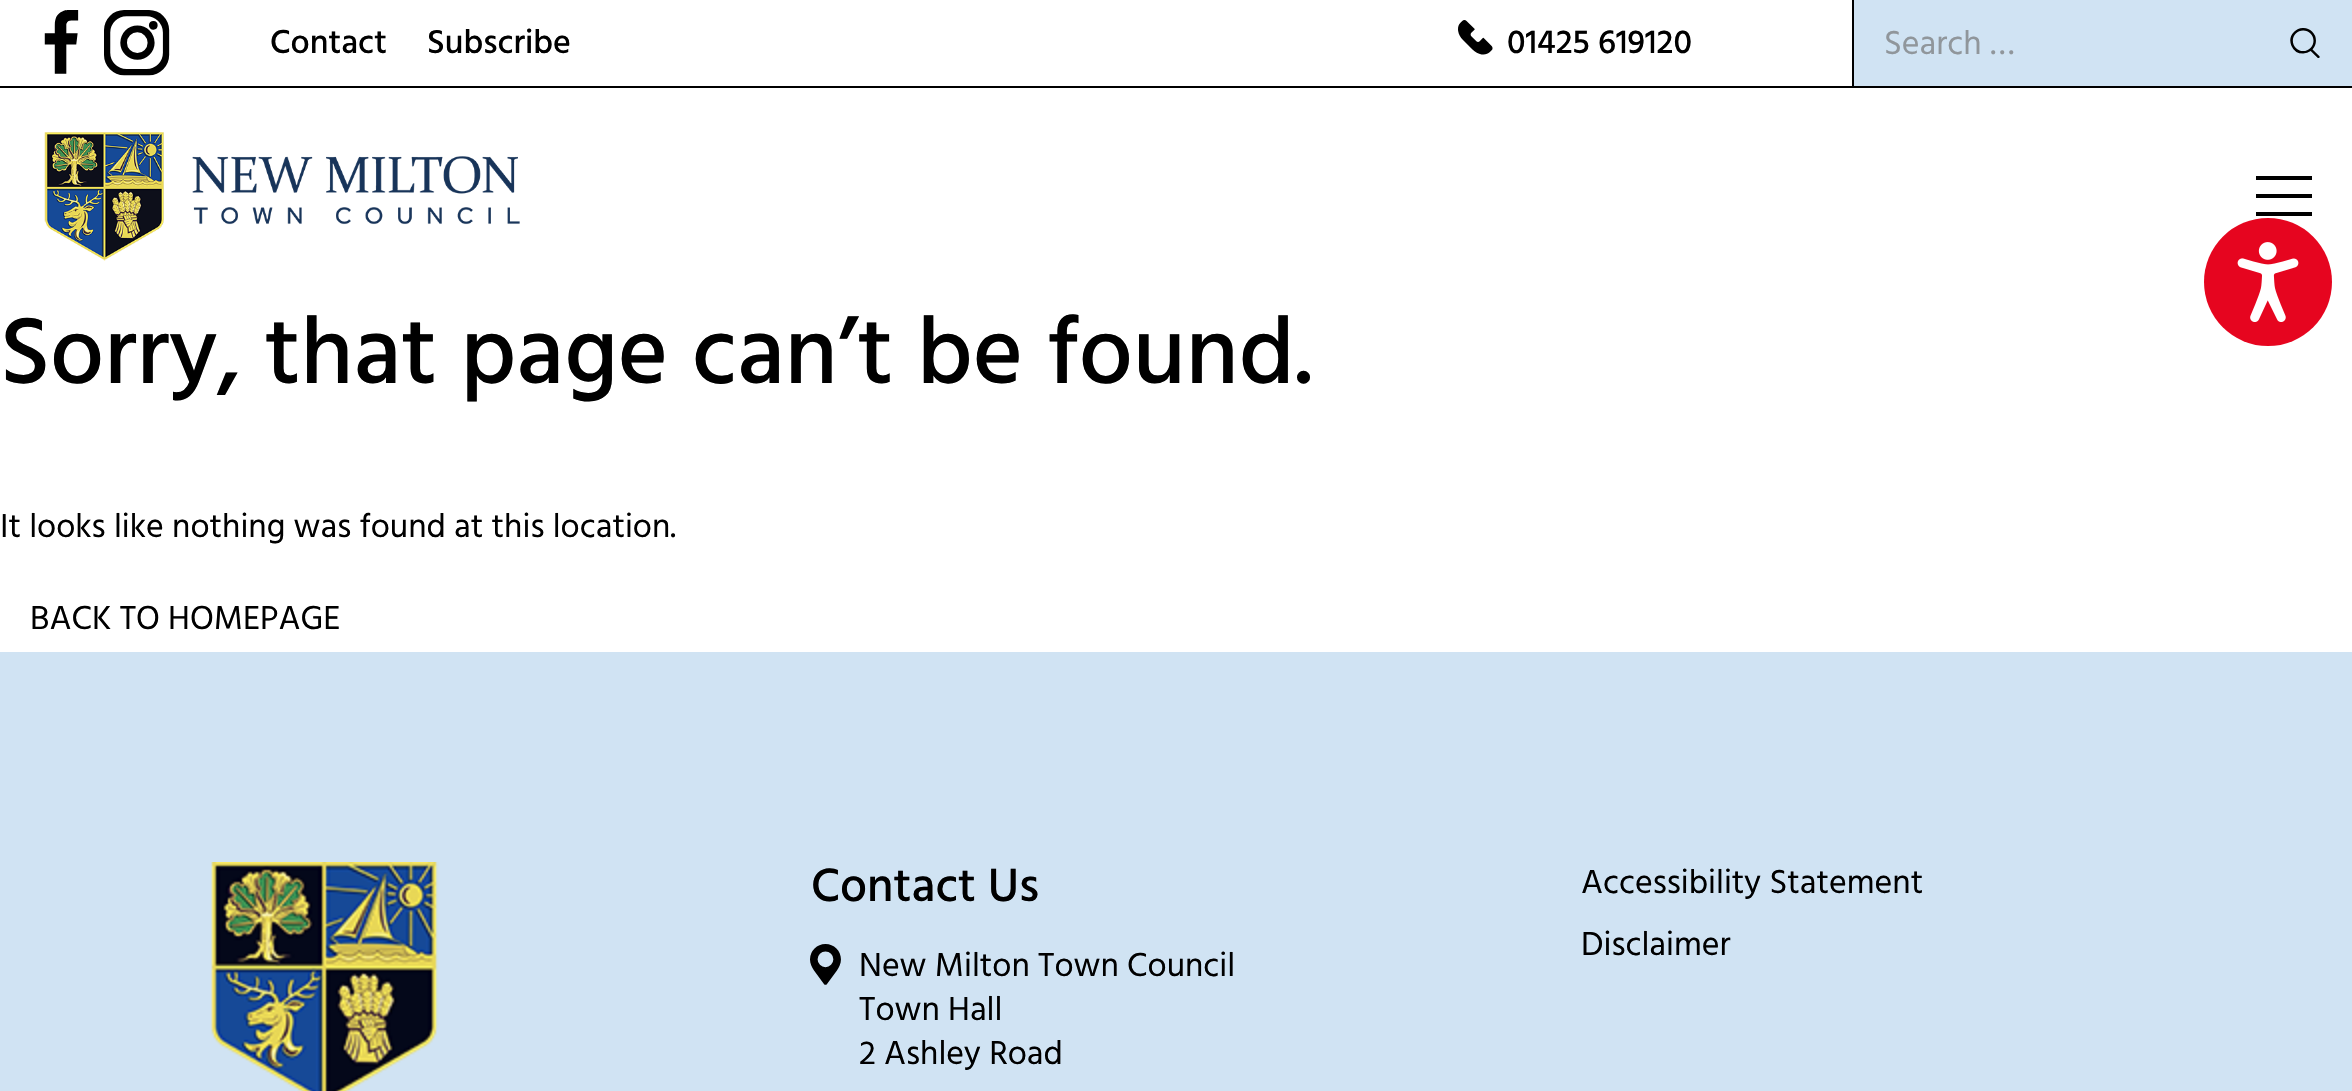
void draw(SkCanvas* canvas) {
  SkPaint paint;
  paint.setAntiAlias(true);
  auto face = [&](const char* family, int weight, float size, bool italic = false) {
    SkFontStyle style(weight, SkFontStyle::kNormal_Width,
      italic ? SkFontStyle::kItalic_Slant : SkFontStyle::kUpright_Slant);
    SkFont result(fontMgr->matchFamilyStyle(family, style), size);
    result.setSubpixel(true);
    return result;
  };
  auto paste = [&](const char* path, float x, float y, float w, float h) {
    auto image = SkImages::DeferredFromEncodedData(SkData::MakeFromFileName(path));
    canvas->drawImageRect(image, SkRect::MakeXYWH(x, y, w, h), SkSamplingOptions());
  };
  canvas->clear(0xffffffff);
  paint.setColor(0xff000000);
  canvas->drawRect(SkRect::MakeXYWH(0, 86, 2352, 2), paint);
  paste("img/1.png", 44, 10, 35, 64);
  paste("img/2.png", 104, 10, 66, 66);
  paste("img/3.png", 1458, 20, 35, 35);
  paint.setColor(0xffd0e3f3);
  canvas->drawRect(SkRect::MakeXYWH(1854, 0, 498, 86), paint);
  paint.setColor(0xff000000);
  canvas->drawRect(SkRect::MakeXYWH(1852, 0, 2, 86), paint);
  paste("img/4.png", 2290, 28, 30, 30);
  paste("img/5.png", 44, 132, 476, 129);
  {
    const struct { float x, y, w, h; SkColor color; } items[] = {
      {2256, 176, 56, 4, 0xff000000},
      {2256, 194, 56, 4, 0xff000000},
      {2256, 212, 56, 4, 0xff000000},
      {0, 652, 2352, 439, 0xffd0e3f3},
    };
    for (auto [x, y, w, h, color] : items) {
      paint.setColor(color);
      canvas->drawRect(SkRect::MakeXYWH(x, y, w, h), paint);
    }
  }
  paste("img/6.png", 211, 862, 228, 229);
  paste("img/7.png", 810, 944, 31, 41);
  paint.setColor(0xffe6051f);
  canvas->drawCircle(2268, 282, 64, paint);
  paste("img/8.png", 2237, 242, 62, 80);
  auto f0 = face("Hind", 500, 34);
  paint.setColor(0xff000000);
  {
    const struct { const char* s; float x, y; } items[] = {
      {"Contact", 270, 53},
      {"Subscribe", 427, 53},
      {"01425 619120", 1507, 53},
    };
    for (auto [s, x, y] : items) {
      canvas->drawString(s, x, y, f0, paint);
    }
  }
  auto f1 = face("Hind", 400, 34);
  paint.setColor(0xff90969b);
  canvas->drawString("Search …", 1884, 54, f1, paint);
  auto f2 = face("Hind", 500, 96);
  paint.setColor(0xff000000);
  canvas->drawString("Sorry, that page can’t be found.", 0, 383, f2, paint);
  canvas->drawString("It looks like nothing was found at this location.", 0, 537, f1, paint);
  canvas->drawString("BACK TO HOMEPAGE", 30, 629, f1, paint);
  auto f3 = face("Hind", 500, 48);
  canvas->drawString("Contact Us", 811, 901, f3, paint);
  {
    const struct { const char* s; float x, y; } items[] = {
      {"New Milton Town Council", 859, 976},
      {"Town Hall", 859, 1020},
      {"2 Ashley Road", 859, 1064},
      {"Accessibility Statement", 1581, 893},
      {"Disclaimer", 1581, 955},
    };
    for (auto [s, x, y] : items) {
      canvas->drawString(s, x, y, f1, paint);
    }
  }
}
